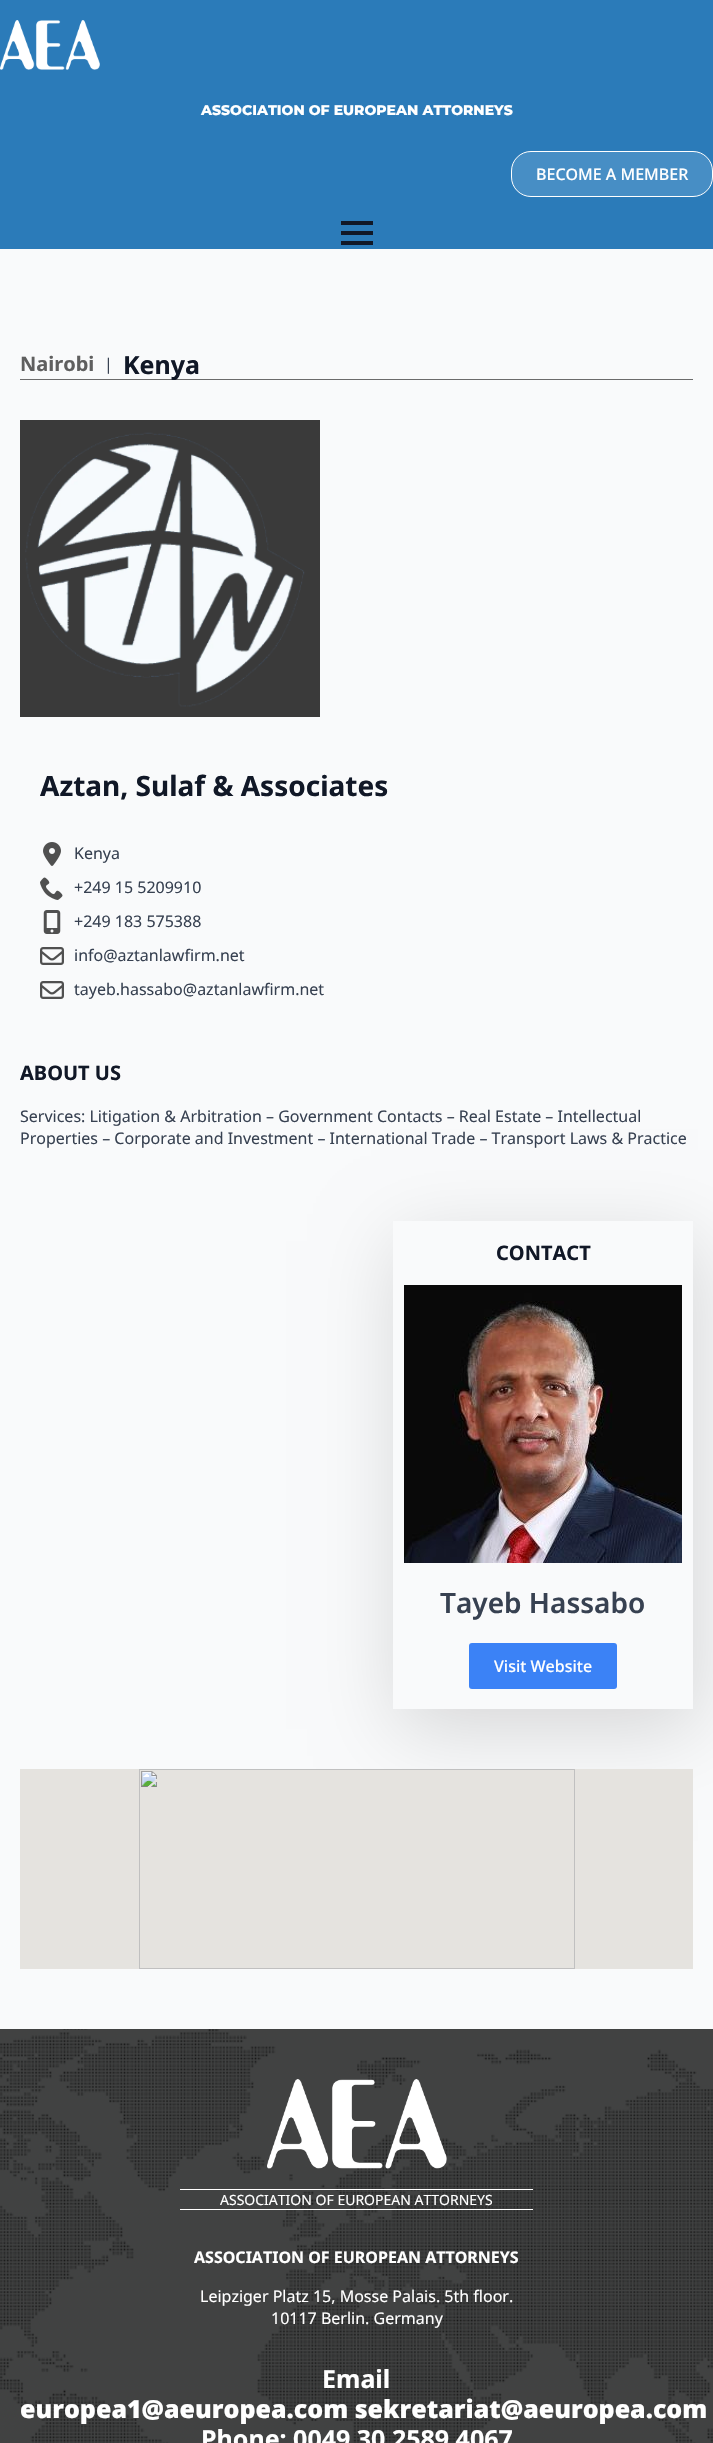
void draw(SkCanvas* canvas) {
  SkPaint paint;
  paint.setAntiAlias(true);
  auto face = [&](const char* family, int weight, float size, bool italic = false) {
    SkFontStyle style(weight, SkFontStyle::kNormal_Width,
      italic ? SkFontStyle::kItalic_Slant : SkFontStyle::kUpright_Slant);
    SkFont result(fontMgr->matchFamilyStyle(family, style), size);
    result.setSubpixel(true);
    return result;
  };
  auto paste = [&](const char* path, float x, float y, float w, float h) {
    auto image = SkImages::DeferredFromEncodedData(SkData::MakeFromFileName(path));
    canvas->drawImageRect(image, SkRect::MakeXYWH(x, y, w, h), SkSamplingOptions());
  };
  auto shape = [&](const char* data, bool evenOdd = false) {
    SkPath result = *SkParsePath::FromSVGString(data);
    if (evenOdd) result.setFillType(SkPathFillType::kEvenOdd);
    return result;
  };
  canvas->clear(0xfff9fafb);
  paint.setColor(0xff414242);
  canvas->drawRect(SkRect::MakeXYWH(0, 2029, 713, 414), paint);
  paint.setColor(0xff2b7bb9);
  canvas->drawRect(SkRect::MakeXYWH(0, 0, 713, 249), paint);
  paste("img/1.png", 0, 20, 100, 50);
  paint.setColor(0xff478ec5);
  canvas->drawRoundRect(SkRect::MakeXYWH(511.5f, 151.5f, 201, 45), 19.5f, 19.5f, paint);
  paint.setStroke(true);
  paint.setStrokeWidth(1);
  paint.setColor(0xffffffff);
  canvas->drawRoundRect(SkRect::MakeXYWH(511.5f, 151.5f, 201, 45), 19.5f, 19.5f, paint);
  paint.setStroke(false);
  {
    const struct { float x, y, w, h; SkColor color; } items[] = {
      {341, 231, 32, 4, 0xff111827},
      {341, 221, 32, 4, 0xff111827},
      {341, 241, 32, 4, 0xff111827},
      {20, 379, 673, 1, 0xff6b6b6b},
    };
    for (auto [x, y, w, h, color] : items) {
      paint.setColor(color);
      canvas->drawRect(SkRect::MakeXYWH(x, y, w, h), paint);
    }
  }
  paste("img/2.png", 20, 420, 300, 297);
  paste("img/3.png", 43, 842, 18, 24);
  paste("img/4.png", 40, 877, 23, 23);
  paste("img/5.png", 43, 910, 18, 24);
  paste("img/6.png", 40, 947, 24, 18);
  paste("img/6.png", 40, 981, 24, 18);
  canvas->save();
  canvas->clipPath(shape("M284 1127H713V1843H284ZM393 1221H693V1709H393Z", true), true);
  paint.setColor(0x24000000);
  paint.setMaskFilter(SkMaskFilter::MakeBlur(kNormal_SkBlurStyle, 37.5f));
  canvas->drawRect(SkRect::MakeXYWH(398, 1241, 300, 488), paint);
  paint.setMaskFilter(nullptr);
  canvas->restore();
  paste("img/7.png", 404, 1285, 278, 278);
  paint.setColor(0xff3b82f6);
  canvas->drawRoundRect(SkRect::MakeXYWH(469, 1643, 148, 46), 3, 3, paint);
  paste("img/8.png", 20, 1769, 673, 200);
  paste("img/9.png", 0, 2029, 713, 414);
  paste("img/10.png", 267, 2079, 180, 90);
  paint.setColor(0xffffffff);
  canvas->drawRect(SkRect::MakeXYWH(180, 2189, 353, 1), paint);
  canvas->drawRect(SkRect::MakeXYWH(180, 2209, 353, 1), paint);
  auto f0 = face("Montserrat", 800, 14);
  canvas->drawString("ASSOCIATION OF EUROPEAN ATTORNEYS", 201, 115, f0, paint);
  auto f1 = face("Noto Sans", 500, 16);
  canvas->drawString("BECOME A MEMBER", 536, 180, f1, paint);
  auto f2 = face("Noto Sans", 700, 20);
  paint.setColor(0xff5f5f5f);
  canvas->drawString("Nairobi", 20, 371, f2, paint);
  auto f3 = face("Noto Sans", 400, 16);
  paint.setColor(0xff374151);
  canvas->drawString("|", 104, 370, f3, paint);
  auto f4 = face("Noto Sans", 700, 25);
  paint.setColor(0xff111827);
  canvas->drawString("Kenya", 123, 374, f4, paint);
  auto f5 = face("Noto Sans", 700, 28);
  canvas->drawString("Aztan, Sulaf & Associates", 40, 796, f5, paint);
  paint.setColor(0xff374151);
  {
    const struct { const char* s; float x, y; } items[] = {
      {"Kenya", 74, 859},
      {"+249 15 5209910", 74, 893},
      {"+249 183 575388", 74, 927},
      {"info@aztanlawfirm.net", 74, 961},
      {"tayeb.hassabo@aztanlawfirm.net", 74, 995},
    };
    for (auto [s, x, y] : items) {
      canvas->drawString(s, x, y, f3, paint);
    }
  }
  paint.setColor(0xff111827);
  canvas->drawString("ABOUT US", 20, 1080, f2, paint);
  paint.setColor(0xff374151);
  canvas->drawString("Services: Litigation & Arbitration – Government Contacts – Real Estate – Intellectual", 20, 1122, f3, paint);
  canvas->drawString("Properties – Corporate and Investment – International Trade – Transport Laws & Practice", 20, 1144, f3, paint);
  paint.setColor(0xff111827);
  canvas->drawString("CONTACT", 496, 1260, f2, paint);
  auto f6 = face("Noto Sans", 600, 28);
  paint.setColor(0xff374151);
  canvas->drawString("Tayeb Hassabo", 440, 1613, f6, paint);
  paint.setColor(0xffffffff);
  canvas->drawString("Visit Website", 494, 1672, f1, paint);
  auto f7 = face("Noto Sans", 400, 14);
  canvas->drawString("ASSOCIATION OF EUROPEAN ATTORNEYS", 220, 2205, f7, paint);
  auto f8 = face("Noto Sans", 700, 16);
  canvas->drawString("ASSOCIATION OF EUROPEAN ATTORNEYS", 194, 2263, f8, paint);
  canvas->drawString("Leipziger Platz 15, Mosse Palais. 5th floor.", 200, 2302, f3, paint);
  canvas->drawString("10117 Berlin. Germany", 271, 2324, f3, paint);
  canvas->drawString("Email", 322, 2388, f4, paint);
  auto f9 = face("Noto Sans", 900, 25);
  canvas->drawString("europea1@aeuropea.com sekretariat@aeuropea.com", 20, 2418, f9, paint);
  canvas->drawString("Phone: 0049 30 2589 4067", 201, 2448, f4, paint);
}
